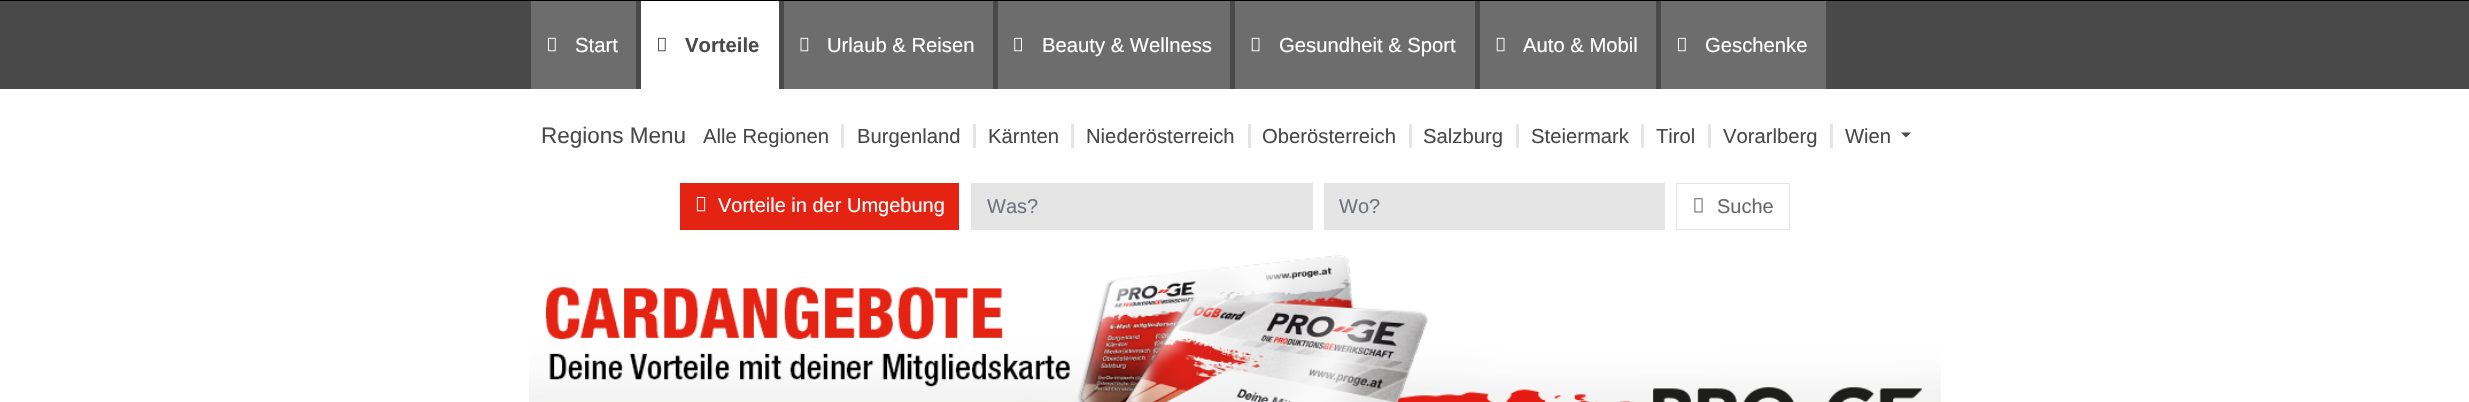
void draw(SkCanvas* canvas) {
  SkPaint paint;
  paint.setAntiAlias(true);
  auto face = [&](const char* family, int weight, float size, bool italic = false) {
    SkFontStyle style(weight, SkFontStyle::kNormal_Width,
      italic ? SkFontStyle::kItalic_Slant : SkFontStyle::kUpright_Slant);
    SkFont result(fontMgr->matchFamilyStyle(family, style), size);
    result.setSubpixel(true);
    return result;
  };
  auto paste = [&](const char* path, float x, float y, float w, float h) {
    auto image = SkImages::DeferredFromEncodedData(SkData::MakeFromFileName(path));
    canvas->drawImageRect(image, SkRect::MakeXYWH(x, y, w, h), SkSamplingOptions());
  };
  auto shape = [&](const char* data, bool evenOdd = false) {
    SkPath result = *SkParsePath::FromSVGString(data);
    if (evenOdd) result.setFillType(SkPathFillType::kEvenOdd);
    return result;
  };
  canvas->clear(0xffffffff);
  {
    const struct { float x, y, w, h; SkColor color; } items[] = {
      {0, 0, 2469, 1, 0xff000000},
      {0, 1, 2469, 88, 0xff494949},
      {531, 1, 105, 88, 0xff6d6d6d},
    };
    for (auto [x, y, w, h, color] : items) {
      paint.setColor(color);
      canvas->drawRect(SkRect::MakeXYWH(x, y, w, h), paint);
    }
  }
  paste("img/1.png", 548, 37, 8, 15);
  paint.setColor(0xffffffff);
  canvas->drawRect(SkRect::MakeXYWH(641, 1, 138, 88), paint);
  paste("img/2.png", 658, 37, 8, 15);
  paint.setColor(0xff6d6d6d);
  canvas->drawRect(SkRect::MakeXYWH(784, 1, 209, 88), paint);
  paste("img/3.png", 800, 37, 9, 15);
  canvas->drawRect(SkRect::MakeXYWH(998, 1, 232, 88), paint);
  paste("img/4.png", 1014, 37, 8, 15);
  canvas->drawRect(SkRect::MakeXYWH(1235, 1, 240, 88), paint);
  paste("img/5.png", 1251, 37, 9, 15);
  canvas->drawRect(SkRect::MakeXYWH(1480, 1, 176, 88), paint);
  paste("img/5.png", 1496, 37, 9, 15);
  canvas->drawRect(SkRect::MakeXYWH(1661, 1, 165, 88), paint);
  paste("img/1.png", 1678, 37, 8, 15);
  {
    const struct { float x, y, w, h; SkColor color; } items[] = {
      {841, 124, 3, 24, 0xffe5e5e5},
      {973, 124, 3, 24, 0xffe5e5e5},
      {1071, 124, 3, 24, 0xffe5e5e5},
      {1248, 124, 3, 24, 0xffe5e5e5},
      {1409, 124, 3, 24, 0xffe5e5e5},
      {1516, 124, 3, 24, 0xffe5e5e5},
      {1641, 124, 3, 24, 0xffe5e5e5},
      {1708, 124, 3, 24, 0xffe5e5e5},
      {1830, 124, 3, 24, 0xffe5e5e5},
    };
    for (auto [x, y, w, h, color] : items) {
      paint.setColor(color);
      canvas->drawRect(SkRect::MakeXYWH(x, y, w, h), paint);
    }
  }
  paint.setColor(0xff494949);
  canvas->drawPath(shape("M1901 132.5H1911L1906 137.5Z"), paint);
  paint.setColor(0xffe42313);
  canvas->drawRect(SkRect::MakeXYWH(680, 183, 279, 47), paint);
  paste("img/6.png", 696, 196, 10, 16);
  paint.setColor(0xffe5e5e5);
  canvas->drawRect(SkRect::MakeXYWH(971, 183, 342, 47), paint);
  canvas->drawRect(SkRect::MakeXYWH(1324, 183, 341, 47), paint);
  paint.setStroke(true);
  paint.setStrokeWidth(1);
  canvas->drawRect(SkRect::MakeXYWH(1676.5f, 183.5f, 113, 46), paint);
  paste("img/7.png", 1694, 198, 9, 15);
  paste("img/8.png", 529, 255, 1412, 147);
  auto f0 = face("Liberation Sans", 400, 20.25f);
  paint.setStroke(false);
  paint.setColor(0xffffffff);
  canvas->drawString("Start", 575, 52, f0, paint);
  auto f1 = face("Liberation Sans", 700, 20.25f);
  paint.setColor(0xff494949);
  canvas->drawString("Vorteile", 685, 52, f1, paint);
  paint.setColor(0xffffffff);
  {
    const struct { const char* s; float x, y; } items[] = {
      {"Urlaub & Reisen", 827, 52},
      {"Beauty & Wellness", 1042, 52},
      {"Gesundheit & Sport", 1279, 52},
      {"Auto & Mobil", 1523, 52},
      {"Geschenke", 1705, 52},
    };
    for (auto [s, x, y] : items) {
      canvas->drawString(s, x, y, f0, paint);
    }
  }
  auto f2 = face("Liberation Sans", 400, 22.5f);
  paint.setColor(0xff494949);
  canvas->drawString("Regions Menu", 541, 143, f2, paint);
  {
    const struct { const char* s; float x, y; } items[] = {
      {"Alle Regionen", 703, 143},
      {"Burgenland", 857, 143},
      {"Kärnten", 988, 143},
      {"Niederösterreich", 1086, 143},
      {"Oberösterreich", 1262, 143},
      {"Salzburg", 1423, 143},
      {"Steiermark", 1531, 143},
      {"Tirol", 1656, 143},
      {"Vorarlberg", 1723, 143},
      {"Wien", 1845, 143},
    };
    for (auto [s, x, y] : items) {
      canvas->drawString(s, x, y, f0, paint);
    }
  }
  auto f3 = face("Liberation Sans", 400, 20);
  paint.setColor(0xffffffff);
  canvas->drawString("Vorteile in der Umgebung", 718, 212, f3, paint);
  paint.setColor(0xff6c757d);
  canvas->drawString("Was?", 987, 213, f3, paint);
  canvas->drawString("Wo?", 1339, 213, f3, paint);
  paint.setColor(0xff686868);
  canvas->drawString("Suche", 1717, 213, f3, paint);
}
